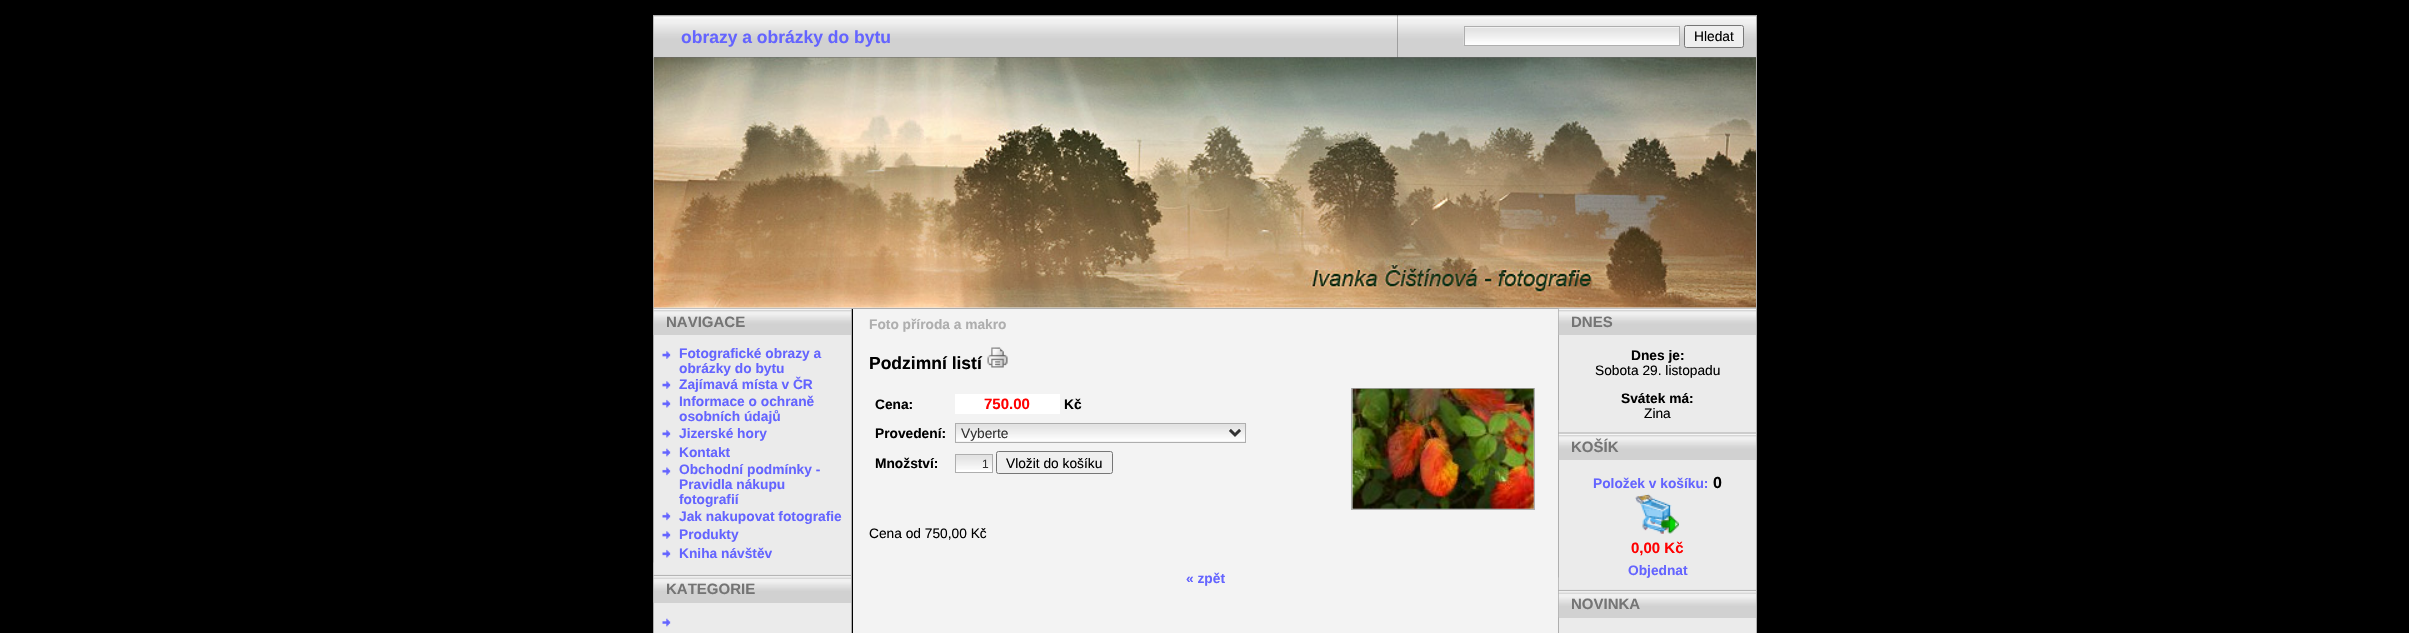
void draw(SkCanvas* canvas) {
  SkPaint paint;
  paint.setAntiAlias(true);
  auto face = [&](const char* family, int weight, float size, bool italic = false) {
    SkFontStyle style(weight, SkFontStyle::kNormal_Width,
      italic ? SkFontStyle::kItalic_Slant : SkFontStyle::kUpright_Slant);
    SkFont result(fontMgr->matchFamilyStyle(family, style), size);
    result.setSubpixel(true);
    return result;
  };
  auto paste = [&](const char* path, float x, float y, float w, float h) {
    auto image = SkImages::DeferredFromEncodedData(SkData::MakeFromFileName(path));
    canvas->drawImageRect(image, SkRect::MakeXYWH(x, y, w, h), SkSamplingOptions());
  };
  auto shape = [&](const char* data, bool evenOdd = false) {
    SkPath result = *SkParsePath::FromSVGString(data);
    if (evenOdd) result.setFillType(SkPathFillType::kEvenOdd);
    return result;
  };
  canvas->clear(0xff000000);
  paint.setColor(0xffaeaeae);
  canvas->drawRect(SkRect::MakeXYWH(653, 15, 1, 618), paint);
  paste("img/1.png", 653, 15, 745, 43);
  paste("img/2.png", 1397, 15, 359, 43);
  paint.setColor(0xffffffff);
  canvas->drawRect(SkRect::MakeXYWH(1465, 27, 214, 1), paint);
  paste("img/3.png", 1463, 27, 216, 18);
  paint.setStroke(true);
  paint.setStrokeWidth(1);
  paint.setColor(0xffaeaeae);
  canvas->drawRect(SkRect::MakeXYWH(1464.5f, 26.5f, 215, 19), paint);
  paint.setStroke(false);
  paint.setColor(0xffefefef);
  canvas->drawRoundRect(SkRect::MakeXYWH(1684.5f, 25.5f, 59, 22), 2, 2, paint);
  paint.setStroke(true);
  paint.setColor(0xff767676);
  canvas->drawRoundRect(SkRect::MakeXYWH(1684.5f, 25.5f, 59, 22), 2, 2, paint);
  paint.setStroke(false);
  paint.setColor(0xffebebeb);
  canvas->drawRect(SkRect::MakeXYWH(654, 307, 1102, 1), paint);
  paste("img/4.png", 653, 57, 1103, 251);
  paint.setColor(0xffaeaeae);
  canvas->drawRect(SkRect::MakeXYWH(654, 308, 1102, 1), paint);
  paint.setColor(0xffebebeb);
  canvas->drawRect(SkRect::MakeXYWH(654, 335, 197, 228), paint);
  paste("img/5.png", 653, 308, 199, 27);
  paste("img/6.png", 662, 351, 9, 8);
  paste("img/6.png", 662, 381, 9, 8);
  paste("img/7.png", 662, 399, 9, 9);
  paste("img/7.png", 662, 429, 9, 9);
  paste("img/8.png", 662, 448, 9, 9);
  paste("img/9.png", 662, 467, 9, 9);
  paste("img/9.png", 662, 512, 9, 9);
  paste("img/6.png", 662, 531, 9, 8);
  paste("img/7.png", 662, 549, 9, 9);
  paste("img/10.png", 653, 562, 198, 15);
  canvas->drawRect(SkRect::MakeXYWH(654, 603, 197, 30), paint);
  paint.setColor(0xffd1d1d1);
  canvas->drawRect(SkRect::MakeXYWH(654, 576, 197, 27), paint);
  paste("img/11.png", 653, 576, 198, 27);
  paste("img/8.png", 662, 618, 9, 9);
  paint.setColor(0xffaeaeae);
  canvas->drawRect(SkRect::MakeXYWH(851, 309, 1, 324), paint);
  paint.setColor(0xfff3f3f3);
  canvas->drawRect(SkRect::MakeXYWH(853, 309, 705, 324), paint);
  paste("img/12.png", 987, 347, 21, 21);
  paint.setColor(0xffffffff);
  canvas->drawRect(SkRect::MakeXYWH(955, 394, 105, 20), paint);
  paint.setColor(0xffefefef);
  canvas->drawRect(SkRect::MakeXYWH(956, 441, 289, 1), paint);
  paste("img/13.png", 956, 424, 291, 18);
  paint.setStroke(true);
  paint.setColor(0xffaeaeae);
  canvas->drawRect(SkRect::MakeXYWH(955.5f, 423.5f, 290, 19), paint);
  paint.setStrokeWidth(2.5f);
  paint.setColor(0xff333333);
  canvas->drawPath(shape("M1230 430L1235 435L1240 430"), paint);
  paint.setStroke(false);
  paint.setColor(0xffffffff);
  canvas->drawRect(SkRect::MakeXYWH(956, 470, 36, 2), paint);
  paste("img/14.png", 956, 455, 36, 15);
  paint.setStroke(true);
  paint.setStrokeWidth(1);
  paint.setColor(0xffaeaeae);
  canvas->drawRect(SkRect::MakeXYWH(955.5f, 454.5f, 37, 18), paint);
  paint.setStroke(false);
  paint.setColor(0xffefefef);
  canvas->drawRoundRect(SkRect::MakeXYWH(996.5f, 451.5f, 116, 22), 2, 2, paint);
  paint.setStroke(true);
  paint.setColor(0xff767676);
  canvas->drawRoundRect(SkRect::MakeXYWH(996.5f, 451.5f, 116, 22), 2, 2, paint);
  paint.setColor(0xffaeaeae);
  canvas->drawRect(SkRect::MakeXYWH(1351.5f, 388.5f, 183, 121), paint);
  paste("img/15.png", 1352, 388, 182, 121);
  paint.setStroke(false);
  canvas->drawRect(SkRect::MakeXYWH(1558, 309, 1, 324), paint);
  paint.setColor(0xffebebeb);
  canvas->drawRect(SkRect::MakeXYWH(1559, 335, 197, 298), paint);
  paste("img/16.png", 1558, 308, 198, 27);
  paste("img/17.png", 1558, 420, 198, 14);
  paste("img/18.png", 1558, 433, 198, 27);
  paste("img/19.png", 1635, 493, 45, 41);
  paste("img/10.png", 1558, 577, 198, 15);
  paint.setColor(0xffd1d1d1);
  canvas->drawRect(SkRect::MakeXYWH(1559, 591, 197, 27), paint);
  paste("img/11.png", 1558, 591, 198, 27);
  paint.setColor(0xffaeaeae);
  canvas->drawRect(SkRect::MakeXYWH(1756, 15, 1, 618), paint);
  auto f0 = face("Liberation Sans", 700, 17.5f);
  paint.setColor(0xff6464ff);
  canvas->drawString("obrazy a obrázky do bytu", 681, 43, f0, paint);
  auto f1 = face("Liberation Sans", 400, 13.75f);
  paint.setColor(0xff000000);
  canvas->drawString("Hledat", 1694, 41, f1, paint);
  auto f2 = face("Liberation Sans", 700, 15);
  paint.setColor(0xff747474);
  canvas->drawString("NAVIGACE", 666, 327, f2, paint);
  auto f3 = face("Liberation Sans", 700, 13.75f);
  paint.setColor(0xff6464ff);
  {
    const struct { const char* s; float x, y; } items[] = {
      {"Fotografické obrazy a", 679, 358},
      {"obrázky do bytu", 679, 373},
      {"Zajímavá místa v ČR", 679, 389},
      {"Informace o ochraně", 679, 406},
      {"osobních údajů", 679, 421},
      {"Jizerské hory", 679, 438},
      {"Kontakt", 679, 457},
      {"Obchodní podmínky -", 679, 474},
      {"Pravidla nákupu", 679, 489},
      {"fotografií", 679, 504},
      {"Jak nakupovat fotografie", 679, 521},
      {"Produkty", 679, 539},
      {"Kniha návštěv", 679, 558},
    };
    for (auto [s, x, y] : items) {
      canvas->drawString(s, x, y, f3, paint);
    }
  }
  paint.setColor(0xff747474);
  canvas->drawString("KATEGORIE", 666, 594, f2, paint);
  paint.setColor(0xffaeaeae);
  canvas->drawString("Foto příroda a makro", 869, 329, f3, paint);
  paint.setColor(0xff000000);
  canvas->drawString("Podzimní listí", 869, 369, f0, paint);
  canvas->drawString("Cena:", 875, 409, f3, paint);
  paint.setColor(0xffff0000);
  canvas->drawString("750.00", 984, 409, f2, paint);
  paint.setColor(0xff000000);
  canvas->drawString("Kč", 1064, 409, f3, paint);
  canvas->drawString("Provedení:", 875, 438, f3, paint);
  paint.setColor(0xff333333);
  canvas->drawString("Vyberte", 961, 438, f1, paint);
  paint.setColor(0xff000000);
  canvas->drawString("Množství:", 875, 468, f3, paint);
  auto f4 = face("Liberation Sans", 400, 12);
  paint.setColor(0xff333333);
  canvas->drawString("1", 982, 468, f4, paint);
  paint.setColor(0xff000000);
  canvas->drawString("Vložit do košíku", 1006, 468, f1, paint);
  canvas->drawString("Cena od 750,00 Kč", 869, 538, f1, paint);
  paint.setColor(0xff6464ff);
  canvas->drawString("« zpět", 1186, 583, f3, paint);
  paint.setColor(0xff747474);
  canvas->drawString("DNES", 1571, 327, f2, paint);
  paint.setColor(0xff000000);
  canvas->drawString("Dnes je:", 1631, 360, f3, paint);
  canvas->drawString("Sobota 29. listopadu", 1595, 375, f1, paint);
  canvas->drawString("Svátek má:", 1621, 403, f3, paint);
  canvas->drawString("Zina", 1644, 418, f1, paint);
  paint.setColor(0xff747474);
  canvas->drawString("KOŠÍK", 1571, 452, f2, paint);
  paint.setColor(0xff6464ff);
  canvas->drawString("Položek v košíku:", 1593, 488, f3, paint);
  auto f5 = face("Liberation Sans", 700, 16);
  paint.setColor(0xff000000);
  canvas->drawString("0", 1713, 488, f5, paint);
  paint.setColor(0xffff0000);
  canvas->drawString("0,00 Kč", 1631, 553, f2, paint);
  paint.setColor(0xff6464ff);
  canvas->drawString("Objednat", 1628, 575, f3, paint);
  paint.setColor(0xff747474);
  canvas->drawString("NOVINKA", 1571, 609, f2, paint);
}
